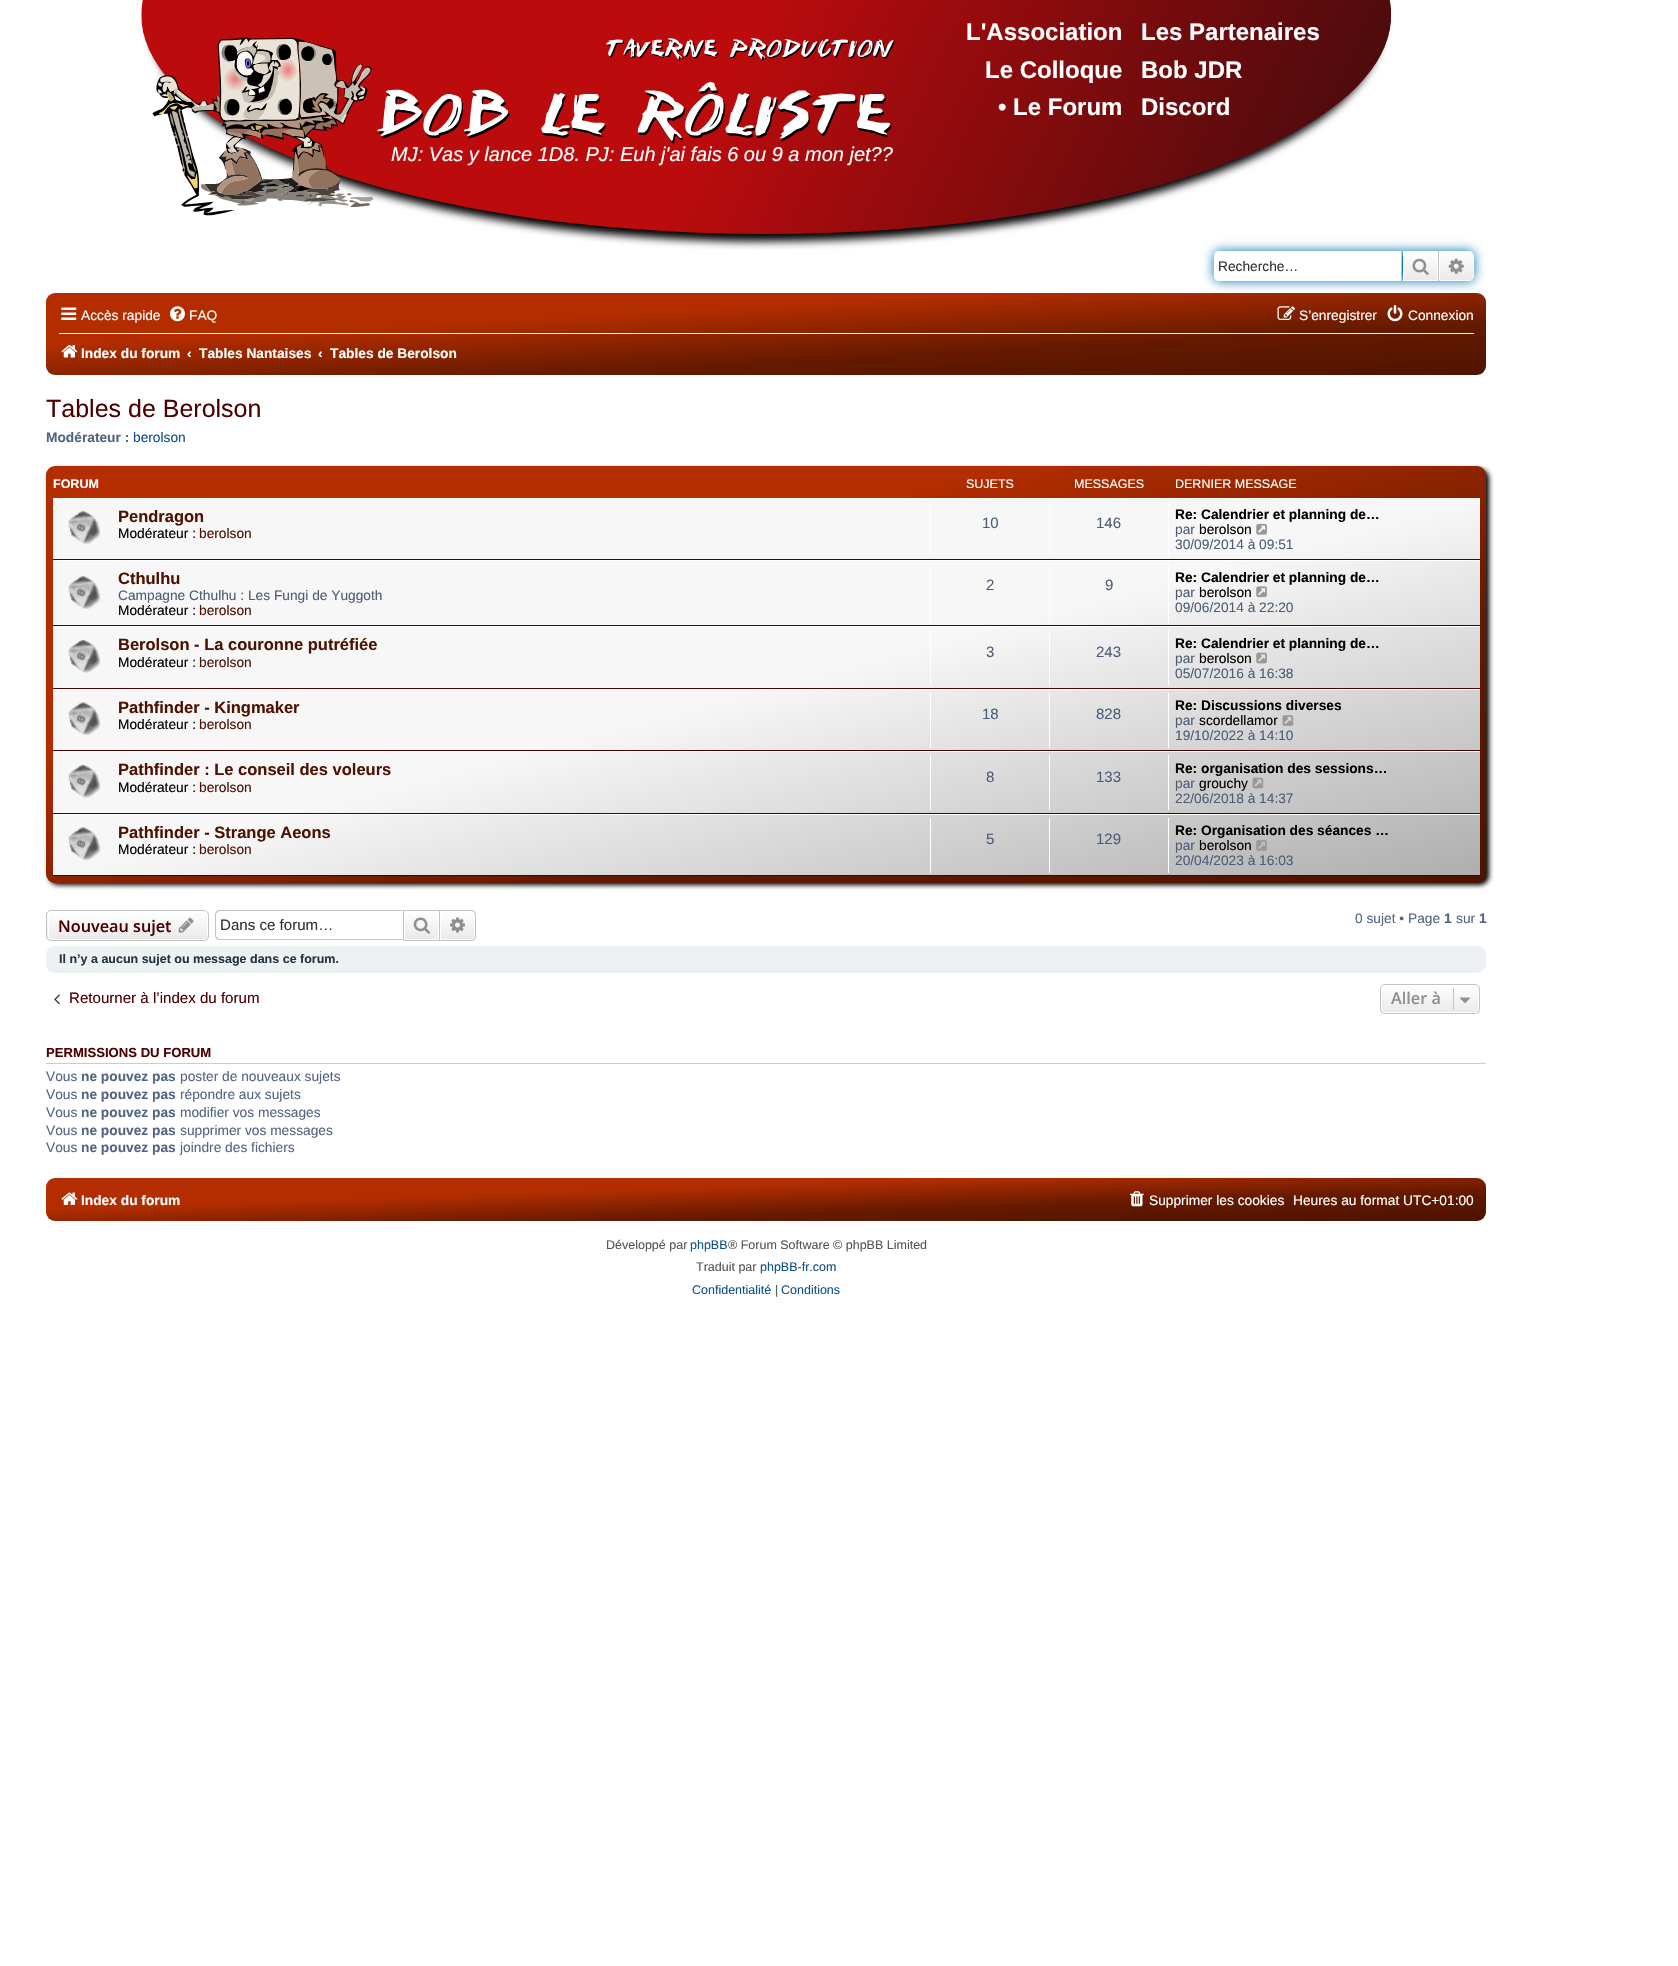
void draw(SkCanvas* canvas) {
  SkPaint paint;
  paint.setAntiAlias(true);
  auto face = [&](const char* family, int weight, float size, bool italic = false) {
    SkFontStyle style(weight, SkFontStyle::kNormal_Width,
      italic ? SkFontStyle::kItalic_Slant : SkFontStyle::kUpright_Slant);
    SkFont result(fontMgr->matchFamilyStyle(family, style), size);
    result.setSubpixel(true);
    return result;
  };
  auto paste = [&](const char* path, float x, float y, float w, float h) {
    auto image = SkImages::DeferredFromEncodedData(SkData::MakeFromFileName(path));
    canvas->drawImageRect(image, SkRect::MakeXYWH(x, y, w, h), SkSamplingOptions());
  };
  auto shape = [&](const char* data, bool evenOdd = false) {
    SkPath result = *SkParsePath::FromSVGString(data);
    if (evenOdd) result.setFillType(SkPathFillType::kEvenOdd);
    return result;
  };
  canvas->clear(0xffffffff);
  {
    const SkColor colors[] = {0xffb32d00, 0xffb32d00, 0xff661a00, 0xff4d1300};
    const float stops[] = {0, 0.33f, 0.67f, 1};
    const SkPoint ends[] = {{762, 252}, {771, 416}};
    paint.setShader(SkGradientShader::MakeLinear(ends, colors, stops, 4, SkTileMode::kClamp));
    paint.setAlpha(255);
  }
  canvas->drawRoundRect(SkRect::MakeXYWH(46, 293, 1440, 82), 9, 9, paint);
  paint.setShader(nullptr);
  paint.setColor(0xff0075b0);
  paint.setMaskFilter(SkMaskFilter::MakeBlur(kNormal_SkBlurStyle, 6));
  canvas->drawRoundRect(SkRect::MakeXYWH(1214, 251, 260, 30), 5, 5, paint);
  paint.setMaskFilter(nullptr);
  paste("img/1.png", 141, 0, 1250, 250);
  paint.setColor(0xffffffff);
  canvas->drawPath(shape("M1219 251H1401V281H1219C1216 281 1214 279 1214 276V256C1214 253 1216 251 1219 251Z"), paint);
  {
    const SkColor colors[] = {0xffffffff, 0xffe9e9e9};
    const float stops[] = {0, 1};
    const SkPoint ends[] = {{1420, 251}, {1420, 281}};
    paint.setShader(SkGradientShader::MakeLinear(ends, colors, stops, 2, SkTileMode::kClamp));
    paint.setAlpha(255);
  }
  canvas->drawRect(SkRect::MakeXYWH(1404, 252, 33, 28), paint);
  paint.setStroke(true);
  paint.setStrokeWidth(1);
  paint.setShader(nullptr);
  paint.setColor(0xffffffff);
  canvas->drawRect(SkRect::MakeXYWH(1403.5f, 251.5f, 34, 29), paint);
  paint.setStroke(false);
  paint.setColor(0xffc7c3bf);
  canvas->drawRect(SkRect::MakeXYWH(1438, 251, 1, 30), paint);
  canvas->drawRect(SkRect::MakeXYWH(1401, 251, 1, 30), paint);
  paste("img/2.png", 1412, 258, 17, 17);
  {
    const SkColor colors[] = {0xffffffff, 0xffe9e9e9};
    const float stops[] = {0, 1};
    const SkPoint ends[] = {{1456, 251}, {1456, 281}};
    paint.setShader(SkGradientShader::MakeLinear(ends, colors, stops, 2, SkTileMode::kClamp));
    paint.setAlpha(255);
  }
  canvas->drawPath(shape("M1439.5 251.5H1469C1471.5 251.5 1473.5 253.5 1473.5 256V276C1473.5 278.5 1471.5 280.5 1469 280.5H1439.5Z"), paint);
  paint.setStroke(true);
  paint.setShader(nullptr);
  paint.setColor(0xffffffff);
  canvas->drawPath(shape("M1439.5 251.5H1469C1471.5 251.5 1473.5 253.5 1473.5 256V276C1473.5 278.5 1471.5 280.5 1469 280.5H1439.5Z"), paint);
  paste("img/3.png", 1448, 258, 16, 16);
  paste("img/4.png", 61, 307, 16, 13);
  paste("img/5.png", 170, 306, 15, 16);
  paste("img/6.png", 1277, 306, 18, 14);
  paste("img/7.png", 1387, 305, 16, 17);
  paint.setStroke(false);
  canvas->drawRect(SkRect::MakeXYWH(59, 333, 1415, 1), paint);
  paste("img/8.png", 61, 345, 17, 13);
  paint.setColor(0xff000000);
  paint.setMaskFilter(SkMaskFilter::MakeBlur(kNormal_SkBlurStyle, 2.5f));
  canvas->drawRoundRect(SkRect::MakeXYWH(49, 469, 1440, 416), 9, 9, paint);
  paint.setMaskFilter(nullptr);
  {
    const SkColor colors[] = {0xffb32d00, 0xffb32d00, 0xff661a00, 0xff4d1300};
    const float stops[] = {0, 0.33f, 0.67f, 1};
    const SkPoint ends[] = {{655, 290}, {877, 1059}};
    paint.setShader(SkGradientShader::MakeLinear(ends, colors, stops, 4, SkTileMode::kClamp));
    paint.setAlpha(255);
  }
  canvas->drawRoundRect(SkRect::MakeXYWH(46, 466, 1440, 417), 9, 9, paint);
  {
    const SkColor colors[] = {0xfff7f7f7, 0xffaeaeae};
    const float stops[] = {0.5f, 1};
    const SkPoint ends[] = {{672, 333}, {860, 1041}};
    paint.setShader(SkGradientShader::MakeLinear(ends, colors, stops, 2, SkTileMode::kClamp));
    paint.setAlpha(255);
  }
  canvas->drawRect(SkRect::MakeXYWH(53, 499, 1427, 376), paint);
  paint.setShader(nullptr);
  paint.setColor(0xffffffff);
  canvas->drawRect(SkRect::MakeXYWH(53, 498, 1427, 1), paint);
  paint.setColor(0xff4d0000);
  canvas->drawRect(SkRect::MakeXYWH(53, 559, 1427, 1), paint);
  paste("img/9.png", 68, 511, 33, 33);
  {
    const struct { float x, y, w, h; SkColor color; } items[] = {
      {930, 501, 1, 55, 0xffffffff},
      {1049, 501, 1, 55, 0xffffffff},
      {1168, 501, 1, 55, 0xffffffff},
    };
    for (auto [x, y, w, h, color] : items) {
      paint.setColor(color);
      canvas->drawRect(SkRect::MakeXYWH(x, y, w, h), paint);
    }
  }
  paste("img/10.png", 1256, 523, 11, 12);
  canvas->drawRect(SkRect::MakeXYWH(53, 560, 1427, 1), paint);
  paint.setColor(0xff4d0000);
  canvas->drawRect(SkRect::MakeXYWH(53, 625, 1427, 1), paint);
  paste("img/11.png", 68, 576, 33, 33);
  {
    const struct { float x, y, w, h; SkColor color; } items[] = {
      {930, 564, 1, 59, 0xffffffff},
      {1049, 564, 1, 59, 0xffffffff},
      {1168, 564, 1, 59, 0xffffffff},
    };
    for (auto [x, y, w, h, color] : items) {
      paint.setColor(color);
      canvas->drawRect(SkRect::MakeXYWH(x, y, w, h), paint);
    }
  }
  paste("img/12.png", 1256, 586, 11, 12);
  canvas->drawRect(SkRect::MakeXYWH(53, 626, 1427, 1), paint);
  paint.setColor(0xff4d0000);
  canvas->drawRect(SkRect::MakeXYWH(53, 688, 1427, 1), paint);
  paste("img/13.png", 68, 639, 33, 34);
  {
    const struct { float x, y, w, h; SkColor color; } items[] = {
      {930, 630, 1, 55, 0xffffffff},
      {1049, 630, 1, 55, 0xffffffff},
      {1168, 630, 1, 55, 0xffffffff},
    };
    for (auto [x, y, w, h, color] : items) {
      paint.setColor(color);
      canvas->drawRect(SkRect::MakeXYWH(x, y, w, h), paint);
    }
  }
  paste("img/14.png", 1256, 652, 11, 12);
  canvas->drawRect(SkRect::MakeXYWH(53, 689, 1427, 1), paint);
  paint.setColor(0xff4d0000);
  canvas->drawRect(SkRect::MakeXYWH(53, 750, 1427, 1), paint);
  paste("img/15.png", 68, 702, 33, 34);
  {
    const struct { float x, y, w, h; SkColor color; } items[] = {
      {930, 693, 1, 55, 0xffffffff},
      {1049, 693, 1, 55, 0xffffffff},
      {1168, 693, 1, 55, 0xffffffff},
    };
    for (auto [x, y, w, h, color] : items) {
      paint.setColor(color);
      canvas->drawRect(SkRect::MakeXYWH(x, y, w, h), paint);
    }
  }
  paste("img/16.png", 1282, 715, 12, 11);
  canvas->drawRect(SkRect::MakeXYWH(53, 751, 1427, 1), paint);
  paint.setColor(0xff4d0000);
  canvas->drawRect(SkRect::MakeXYWH(53, 813, 1427, 1), paint);
  paste("img/13.png", 68, 764, 33, 34);
  {
    const struct { float x, y, w, h; SkColor color; } items[] = {
      {930, 755, 1, 55, 0xffffffff},
      {1049, 755, 1, 55, 0xffffffff},
      {1168, 755, 1, 55, 0xffffffff},
    };
    for (auto [x, y, w, h, color] : items) {
      paint.setColor(color);
      canvas->drawRect(SkRect::MakeXYWH(x, y, w, h), paint);
    }
  }
  paste("img/17.png", 1252, 777, 12, 12);
  canvas->drawRect(SkRect::MakeXYWH(53, 814, 1427, 1), paint);
  paint.setColor(0xff4d0000);
  canvas->drawRect(SkRect::MakeXYWH(53, 875, 1427, 1), paint);
  paste("img/15.png", 68, 827, 33, 34);
  {
    const struct { float x, y, w, h; SkColor color; } items[] = {
      {930, 818, 1, 55, 0xffffffff},
      {1049, 818, 1, 55, 0xffffffff},
      {1168, 818, 1, 55, 0xffffffff},
    };
    for (auto [x, y, w, h, color] : items) {
      paint.setColor(color);
      canvas->drawRect(SkRect::MakeXYWH(x, y, w, h), paint);
    }
  }
  paste("img/18.png", 1256, 840, 11, 11);
  canvas->save();
  canvas->clipPath(shape("M51 910H204C207 910 209 912 209 915V936C209 939 207 941 204 941H51C48 941 46 939 46 936V915C46 912 48 910 51 910Z"), true);
  {
    const SkColor colors[] = {0xffffffff, 0xffe9e9e9};
    const float stops[] = {0, 1};
    const SkPoint ends[] = {{128, 911}, {128, 940}};
    paint.setShader(SkGradientShader::MakeLinear(ends, colors, stops, 2, SkTileMode::kClamp));
    paint.setAlpha(255);
  }
  canvas->drawRect(SkRect::MakeXYWH(46, 911, 163, 29), paint);
  canvas->restore();
  paint.setStroke(true);
  paint.setShader(nullptr);
  paint.setColor(0xffffffff);
  canvas->drawRoundRect(SkRect::MakeXYWH(48.5f, 911.5f, 159, 28), 3.5f, 3.5f, paint);
  paint.setColor(0xffc7c3bf);
  canvas->drawRoundRect(SkRect::MakeXYWH(46.5f, 910.5f, 162, 30), 4.5f, 4.5f, paint);
  paste("img/19.png", 178, 917, 16, 16);
  paint.setStroke(false);
  canvas->drawPath(shape("M220 910H402V940H220C217 940 215 938 215 935V915C215 912 217 910 220 910ZM220 911H402V939H220C218 939 216 937 216 935V915C216 913 218 911 220 911Z", true), paint);
  {
    const SkColor colors[] = {0xffffffff, 0xffe9e9e9};
    const float stops[] = {0, 1};
    const SkPoint ends[] = {{421, 911}, {421, 940}};
    paint.setShader(SkGradientShader::MakeLinear(ends, colors, stops, 2, SkTileMode::kClamp));
    paint.setAlpha(255);
  }
  canvas->drawRect(SkRect::MakeXYWH(405, 914, 33, 25), paint);
  paint.setStroke(true);
  paint.setShader(nullptr);
  paint.setColor(0xffc7c3bf);
  canvas->drawRect(SkRect::MakeXYWH(403.5f, 910.5f, 36, 30), paint);
  paste("img/20.png", 413, 917, 17, 17);
  paint.setStroke(false);
  {
    const SkColor colors[] = {0xffffffff, 0xffe9e9e9};
    const float stops[] = {0, 1};
    const SkPoint ends[] = {{458, 911}, {458, 940}};
    paint.setShader(SkGradientShader::MakeLinear(ends, colors, stops, 2, SkTileMode::kClamp));
    paint.setAlpha(255);
  }
  canvas->drawPath(shape("M440.5 911.5H471C473 911.5 474.5 913 474.5 915V936C474.5 938 473 939.5 471 939.5H440.5Z"), paint);
  paint.setStroke(true);
  paint.setShader(nullptr);
  paint.setColor(0xffffffff);
  canvas->drawPath(shape("M440.5 911.5H471C473 911.5 474.5 913 474.5 915V936C474.5 938 473 939.5 471 939.5H440.5Z"), paint);
  paint.setStroke(false);
  paint.setColor(0xffc7c3bf);
  canvas->drawPath(shape("M440 910H471C474 910 476 912 476 915V936C476 939 474 941 471 941H440ZM440 911H471C473.5 911 475 913 475 915V936C475 938.5 473.5 940 471 940H440Z", true), paint);
  paste("img/21.png", 450, 917, 15, 16);
  paint.setColor(0xffecf1f3);
  canvas->drawRoundRect(SkRect::MakeXYWH(46, 946, 1440, 27), 9, 9, paint);
  paste("img/22.png", 54, 994, 6, 11);
  canvas->save();
  canvas->clipPath(shape("M1385 984H1475C1478 984 1480 986 1480 989V1009C1480 1012 1478 1014 1475 1014H1385C1382 1014 1380 1012 1380 1009V989C1380 986 1382 984 1385 984Z"), true);
  {
    const SkColor colors[] = {0xffffffff, 0xffe9e9e9};
    const float stops[] = {0, 1};
    const SkPoint ends[] = {{1430, 985}, {1430, 1013}};
    paint.setShader(SkGradientShader::MakeLinear(ends, colors, stops, 2, SkTileMode::kClamp));
    paint.setAlpha(255);
  }
  canvas->drawRect(SkRect::MakeXYWH(1380, 985, 100, 28), paint);
  canvas->restore();
  paint.setStroke(true);
  paint.setShader(nullptr);
  paint.setColor(0xffffffff);
  canvas->drawRoundRect(SkRect::MakeXYWH(1381.5f, 985.5f, 97, 27), 3.5f, 3.5f, paint);
  paint.setColor(0xffc7c3bf);
  canvas->drawRoundRect(SkRect::MakeXYWH(1380.5f, 984.5f, 99, 29), 4.5f, 4.5f, paint);
  paint.setStroke(false);
  canvas->drawRect(SkRect::MakeXYWH(1453, 988, 1, 22), paint);
  paste("img/23.png", 1460, 997, 10, 6);
  paint.setColor(0xffcccccc);
  canvas->drawRect(SkRect::MakeXYWH(46, 1063, 1440, 1), paint);
  {
    const SkColor colors[] = {0xffb32d00, 0xffb32d00, 0xff661a00, 0xff4d1300};
    const float stops[] = {0, 0.33f, 0.67f, 1};
    const SkPoint ends[] = {{765, 1156}, {768, 1243}};
    paint.setShader(SkGradientShader::MakeLinear(ends, colors, stops, 4, SkTileMode::kClamp));
    paint.setAlpha(255);
  }
  canvas->drawRoundRect(SkRect::MakeXYWH(46, 1178, 1440, 43), 9, 9, paint);
  paste("img/24.png", 61, 1192, 17, 13);
  paste("img/25.png", 1130, 1191, 14, 16);
  auto f0 = face("Liberation Sans", 700, 24);
  paint.setShader(nullptr);
  paint.setColor(0xffffffff);
  {
    const struct { const char* s; float x, y; } items[] = {
      {"L'Association", 966, 40},
      {"Les Partenaires", 1141, 40},
      {"Le Colloque", 985, 78},
      {"Bob JDR", 1141, 78},
      {"• Le Forum", 998, 115},
      {"Discord", 1141, 115},
    };
    for (auto [s, x, y] : items) {
      canvas->drawString(s, x, y, f0, paint);
    }
  }
  auto f1 = face("Liberation Sans", 400, 20, true);
  canvas->drawString("MJ: Vas y lance 1D8. PJ: Euh j'ai fais 6 ou 9 a mon jet?\077", 391, 161, f1, paint);
  auto f2 = face("Liberation Sans", 400, 13.75f);
  paint.setColor(0xff333333);
  canvas->drawString("Recherche…", 1218, 271, f2, paint);
  paint.setColor(0xffffffff);
  {
    const struct { const char* s; float x, y; } items[] = {
      {"Accès rapide", 81, 320},
      {"FAQ", 189, 320},
      {"S’enregistrer", 1299, 320},
      {"Connexion", 1408, 320},
    };
    for (auto [s, x, y] : items) {
      canvas->drawString(s, x, y, f2, paint);
    }
  }
  auto f3 = face("Liberation Sans", 700, 13.75f);
  {
    const struct { const char* s; float x, y; } items[] = {
      {"Index du forum", 81, 358},
      {"‹", 187, 358},
      {"Tables Nantaises", 199, 358},
      {"‹", 318, 358},
      {"Tables de Berolson", 330, 358},
    };
    for (auto [s, x, y] : items) {
      canvas->drawString(s, x, y, f3, paint);
    }
  }
  auto f4 = face("Liberation Sans", 400, 25);
  paint.setColor(0xff4d0000);
  canvas->drawString("Tables de Berolson", 46, 417, f4, paint);
  paint.setColor(0xff536482);
  canvas->drawString("Modérateur :", 46, 442, f3, paint);
  paint.setColor(0xff105289);
  canvas->drawString("berolson", 133, 442, f2, paint);
  auto f5 = face("Liberation Sans", 700, 12.5f);
  paint.setColor(0xffffffff);
  canvas->drawString("FORUM", 53, 488, f5, paint);
  auto f6 = face("Liberation Sans", 400, 12.5f);
  {
    const struct { const char* s; float x, y; } items[] = {
      {"SUJETS", 966, 488},
      {"MESSAGES", 1074, 488},
      {"DERNIER MESSAGE", 1175, 488},
    };
    for (auto [s, x, y] : items) {
      canvas->drawString(s, x, y, f6, paint);
    }
  }
  auto f7 = face("Liberation Sans", 700, 16.5f);
  paint.setColor(0xff4d1200);
  canvas->drawString("Pendragon", 118, 522, f7, paint);
  paint.setColor(0xff000000);
  canvas->drawString("Modérateur :", 118, 538, f2, paint);
  paint.setColor(0xff4d1200);
  canvas->drawString("berolson", 199, 538, f2, paint);
  auto f8 = face("Liberation Sans", 400, 15);
  paint.setColor(0xff4c5d77);
  canvas->drawString("10", 982, 528, f8, paint);
  canvas->drawString("146", 1096, 528, f8, paint);
  paint.setColor(0xff000000);
  canvas->drawString("Re: Calendrier et planning de…", 1175, 519, f3, paint);
  paint.setColor(0xff4c5d77);
  canvas->drawString("par", 1175, 534, f2, paint);
  paint.setColor(0xff000000);
  canvas->drawString("berolson", 1199, 534, f2, paint);
  paint.setColor(0xff4c5d77);
  canvas->drawString("30/09/2014 à 09:51", 1175, 549, f2, paint);
  paint.setColor(0xff4d1200);
  canvas->drawString("Cthulhu", 118, 584, f7, paint);
  paint.setColor(0xff4c5d77);
  canvas->drawString("Campagne Cthulhu : Les Fungi de Yuggoth", 118, 600, f2, paint);
  paint.setColor(0xff000000);
  canvas->drawString("Modérateur :", 118, 615, f2, paint);
  paint.setColor(0xff4d1200);
  canvas->drawString("berolson", 199, 615, f2, paint);
  paint.setColor(0xff4c5d77);
  canvas->drawString("2", 986, 590, f8, paint);
  canvas->drawString("9", 1105, 590, f8, paint);
  paint.setColor(0xff000000);
  canvas->drawString("Re: Calendrier et planning de…", 1175, 582, f3, paint);
  paint.setColor(0xff4c5d77);
  canvas->drawString("par", 1175, 597, f2, paint);
  paint.setColor(0xff000000);
  canvas->drawString("berolson", 1199, 597, f2, paint);
  paint.setColor(0xff4c5d77);
  canvas->drawString("09/06/2014 à 22:20", 1175, 612, f2, paint);
  paint.setColor(0xff4d1200);
  canvas->drawString("Berolson - La couronne putréfiée", 118, 650, f7, paint);
  paint.setColor(0xff000000);
  canvas->drawString("Modérateur :", 118, 667, f2, paint);
  paint.setColor(0xff4d1200);
  canvas->drawString("berolson", 199, 667, f2, paint);
  paint.setColor(0xff4c5d77);
  canvas->drawString("3", 986, 657, f8, paint);
  canvas->drawString("243", 1096, 657, f8, paint);
  paint.setColor(0xff000000);
  canvas->drawString("Re: Calendrier et planning de…", 1175, 648, f3, paint);
  paint.setColor(0xff4c5d77);
  canvas->drawString("par", 1175, 663, f2, paint);
  paint.setColor(0xff000000);
  canvas->drawString("berolson", 1199, 663, f2, paint);
  paint.setColor(0xff4c5d77);
  canvas->drawString("05/07/2016 à 16:38", 1175, 678, f2, paint);
  paint.setColor(0xff4d1200);
  canvas->drawString("Pathfinder - Kingmaker", 118, 713, f7, paint);
  paint.setColor(0xff000000);
  canvas->drawString("Modérateur :", 118, 729, f2, paint);
  paint.setColor(0xff4d1200);
  canvas->drawString("berolson", 199, 729, f2, paint);
  paint.setColor(0xff4c5d77);
  canvas->drawString("18", 982, 719, f8, paint);
  canvas->drawString("828", 1096, 719, f8, paint);
  paint.setColor(0xff000000);
  canvas->drawString("Re: Discussions diverses", 1175, 710, f3, paint);
  paint.setColor(0xff4c5d77);
  canvas->drawString("par", 1175, 725, f2, paint);
  paint.setColor(0xff000000);
  canvas->drawString("scordellamor", 1199, 725, f2, paint);
  paint.setColor(0xff4c5d77);
  canvas->drawString("19/10/2022 à 14:10", 1175, 740, f2, paint);
  paint.setColor(0xff4d1200);
  canvas->drawString("Pathfinder : Le conseil des voleurs", 118, 775, f7, paint);
  paint.setColor(0xff000000);
  canvas->drawString("Modérateur :", 118, 792, f2, paint);
  paint.setColor(0xff4d1200);
  canvas->drawString("berolson", 199, 792, f2, paint);
  paint.setColor(0xff4c5d77);
  canvas->drawString("8", 986, 782, f8, paint);
  canvas->drawString("133", 1096, 782, f8, paint);
  paint.setColor(0xff000000);
  canvas->drawString("Re: organisation des sessions…", 1175, 773, f3, paint);
  paint.setColor(0xff4c5d77);
  canvas->drawString("par", 1175, 788, f2, paint);
  paint.setColor(0xff000000);
  canvas->drawString("grouchy", 1199, 788, f2, paint);
  paint.setColor(0xff4c5d77);
  canvas->drawString("22/06/2018 à 14:37", 1175, 803, f2, paint);
  paint.setColor(0xff4d1200);
  canvas->drawString("Pathfinder - Strange Aeons", 118, 838, f7, paint);
  paint.setColor(0xff000000);
  canvas->drawString("Modérateur :", 118, 854, f2, paint);
  paint.setColor(0xff4d1200);
  canvas->drawString("berolson", 199, 854, f2, paint);
  paint.setColor(0xff4c5d77);
  canvas->drawString("5", 986, 844, f8, paint);
  canvas->drawString("129", 1096, 844, f8, paint);
  paint.setColor(0xff000000);
  canvas->drawString("Re: Organisation des séances …", 1175, 835, f3, paint);
  paint.setColor(0xff4c5d77);
  canvas->drawString("par", 1175, 850, f2, paint);
  paint.setColor(0xff000000);
  canvas->drawString("berolson", 1199, 850, f2, paint);
  paint.setColor(0xff4c5d77);
  canvas->drawString("20/04/2023 à 16:03", 1175, 865, f2, paint);
  auto f9 = face("Open Sans", 600, 16.25f);
  paint.setColor(0xff4d0000);
  canvas->drawString("Nouveau sujet", 58, 932, f9, paint);
  auto f10 = face("Liberation Sans", 400, 15.1f);
  paint.setColor(0xff333333);
  canvas->drawString("Dans ce forum…", 220, 930, f10, paint);
  paint.setColor(0xff536482);
  canvas->drawString("0 sujet • Page", 1355, 923, f2, paint);
  canvas->drawString("1", 1444, 923, f3, paint);
  canvas->drawString("sur", 1456, 923, f2, paint);
  canvas->drawString("1", 1479, 923, f3, paint);
  paint.setColor(0xff28313f);
  canvas->drawString("Il n’y a aucun sujet ou message dans ce forum.", 59, 963, f5, paint);
  paint.setColor(0xff4d0000);
  canvas->drawString("Retourner à l’index du forum", 69, 1003, f10, paint);
  paint.setColor(0xff8f8f8f);
  canvas->drawString("Aller à", 1391, 1004, f9, paint);
  auto f11 = face("Liberation Sans", 700, 13.1f);
  paint.setColor(0xff4d0000);
  canvas->drawString("PERMISSIONS DU FORUM", 46, 1057, f11, paint);
  paint.setColor(0xff536482);
  canvas->drawString("Vous", 46, 1081, f2, paint);
  canvas->drawString("ne pouvez pas", 81, 1081, f3, paint);
  canvas->drawString("poster de nouveaux sujets", 180, 1081, f2, paint);
  canvas->drawString("Vous", 46, 1099, f2, paint);
  canvas->drawString("ne pouvez pas", 81, 1099, f3, paint);
  canvas->drawString("répondre aux sujets", 180, 1099, f2, paint);
  canvas->drawString("Vous", 46, 1117, f2, paint);
  canvas->drawString("ne pouvez pas", 81, 1117, f3, paint);
  canvas->drawString("modifier vos messages", 180, 1117, f2, paint);
  canvas->drawString("Vous", 46, 1135, f2, paint);
  canvas->drawString("ne pouvez pas", 81, 1135, f3, paint);
  canvas->drawString("supprimer vos messages", 180, 1135, f2, paint);
  canvas->drawString("Vous", 46, 1152, f2, paint);
  canvas->drawString("ne pouvez pas", 81, 1152, f3, paint);
  canvas->drawString("joindre des fichiers", 180, 1152, f2, paint);
  paint.setColor(0xffffffff);
  canvas->drawString("Index du forum", 81, 1205, f3, paint);
  canvas->drawString("Supprimer les cookies", 1149, 1205, f2, paint);
  canvas->drawString("Heures au format UTC+01:00", 1293, 1205, f2, paint);
  paint.setColor(0xff555555);
  canvas->drawString("Développé par", 606, 1249, f6, paint);
  paint.setColor(0xff105289);
  canvas->drawString("phpBB", 690, 1249, f6, paint);
  paint.setColor(0xff555555);
  canvas->drawString("® Forum Software © phpBB Limited", 728, 1249, f6, paint);
  canvas->drawString("Traduit par", 696, 1271, f6, paint);
  paint.setColor(0xff105289);
  canvas->drawString("phpBB-fr.com", 760, 1271, f6, paint);
  canvas->drawString("Confidentialité", 692, 1294, f6, paint);
  paint.setColor(0xff555555);
  canvas->drawString("|", 775, 1294, f6, paint);
  paint.setColor(0xff105289);
  canvas->drawString("Conditions", 781, 1294, f6, paint);
}
